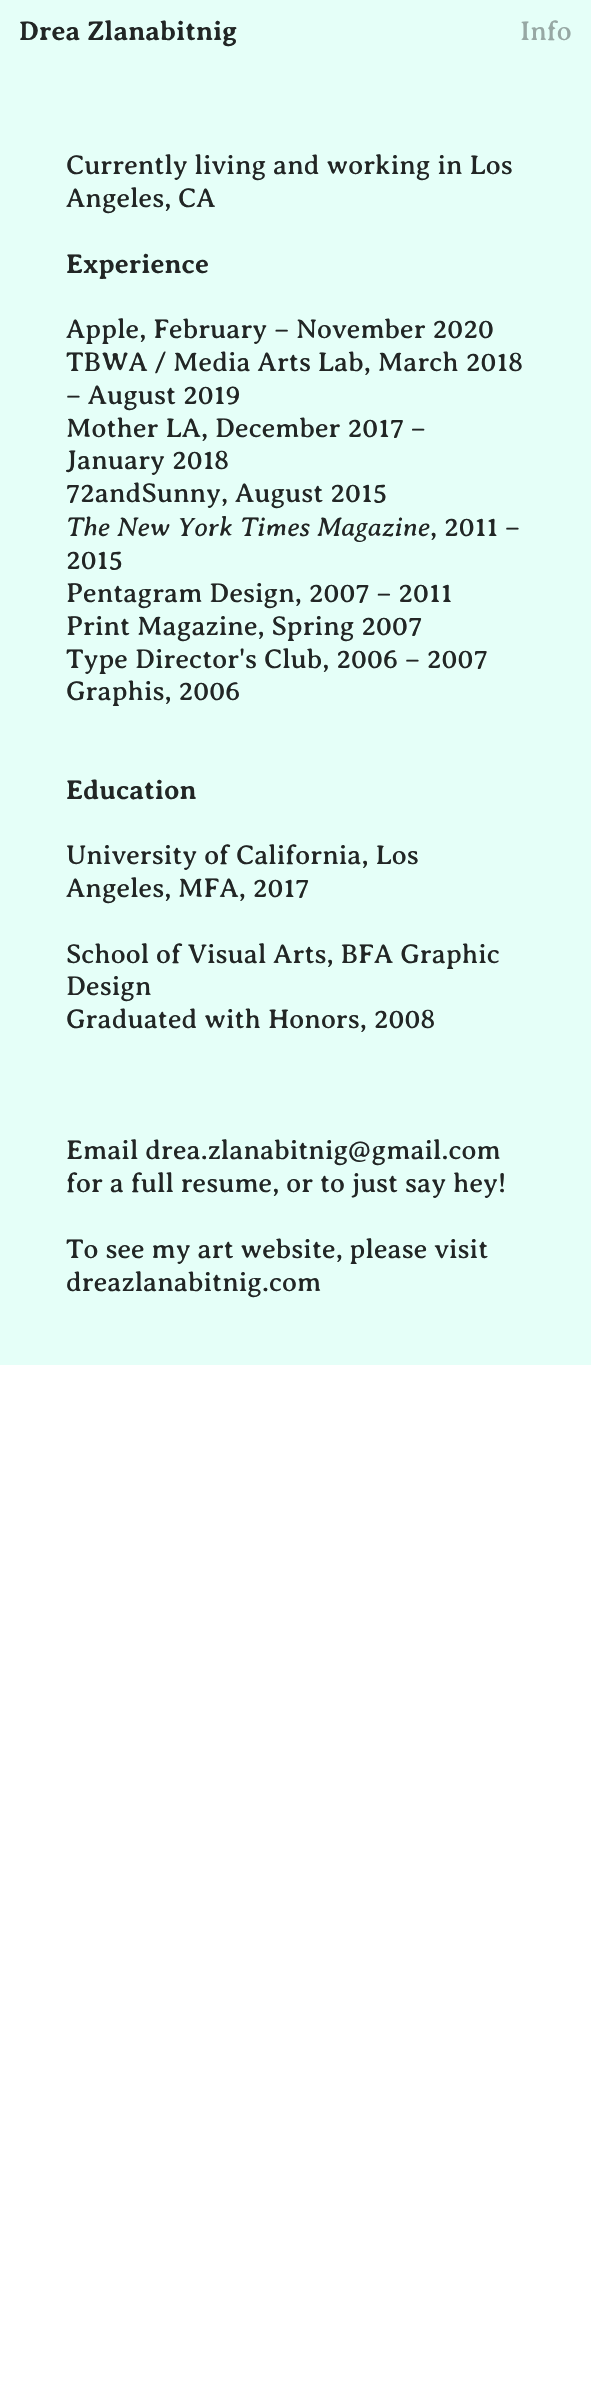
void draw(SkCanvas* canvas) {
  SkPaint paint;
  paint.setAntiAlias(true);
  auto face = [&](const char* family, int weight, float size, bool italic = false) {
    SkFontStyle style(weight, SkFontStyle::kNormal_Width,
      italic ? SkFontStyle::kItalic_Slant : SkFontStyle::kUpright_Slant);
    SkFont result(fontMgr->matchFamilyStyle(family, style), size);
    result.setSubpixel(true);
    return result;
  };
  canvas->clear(0xffffffff);
  paint.setColor(0xffe5fff8);
  canvas->drawRect(SkRect::MakeXYWH(0, 0, 591, 1365), paint);
  auto f0 = face("Averia Serif Libre", 700, 27.3f);
  paint.setColor(0xff222625);
  canvas->drawString("Drea Zlanabitnig", 19, 40, f0, paint);
  auto f1 = face("Averia Serif Libre", 400, 27.3f);
  paint.setColor(0xff97a8a4);
  canvas->drawString("Info", 520, 40, f1, paint);
  paint.setColor(0xff222625);
  canvas->drawString("Currently living and working in Los", 66, 174, f1, paint);
  canvas->drawString("Angeles, CA", 66, 207, f1, paint);
  canvas->drawString("Experience", 66, 273, f0, paint);
  {
    const struct { const char* s; float x, y; } items[] = {
      {"Apple, February – November 2020", 66, 338},
      {"TBWA / Media Arts Lab, March 2018", 66, 371},
      {"– August 2019", 66, 404},
      {"Mother LA, December 2017 –", 66, 437},
      {"January 2018", 66, 469},
      {"72andSunny, August 2015", 66, 502},
    };
    for (auto [s, x, y] : items) {
      canvas->drawString(s, x, y, f1, paint);
    }
  }
  auto f2 = face("Averia Serif Libre", 400, 27.3f, true);
  canvas->drawString("The New York Times Magazine", 66, 536, f2, paint);
  {
    const struct { const char* s; float x, y; } items[] = {
      {", 2011 –", 430, 536},
      {"2015", 66, 569},
      {"Pentagram Design, 2007 – 2011", 66, 602},
      {"Print Magazine, Spring 2007", 66, 635},
      {"Type Director's Club, 2006 – 2007", 66, 668},
      {"Graphis, 2006", 66, 700},
    };
    for (auto [s, x, y] : items) {
      canvas->drawString(s, x, y, f1, paint);
    }
  }
  canvas->drawString("Education", 66, 799, f0, paint);
  {
    const struct { const char* s; float x, y; } items[] = {
      {"University of California, Los", 66, 864},
      {"Angeles, MFA, 2017", 66, 897},
      {"School of Visual Arts, BFA Graphic", 66, 963},
      {"Design", 66, 995},
      {"Graduated with Honors, 2008", 66, 1028},
      {"Email drea.zlanabitnig@gmail.com", 66, 1159},
      {"for a full resume, or to just say hey!", 66, 1192},
      {"To see my art website, please visit", 66, 1258},
      {"dreazlanabitnig.com", 66, 1291},
    };
    for (auto [s, x, y] : items) {
      canvas->drawString(s, x, y, f1, paint);
    }
  }
}
